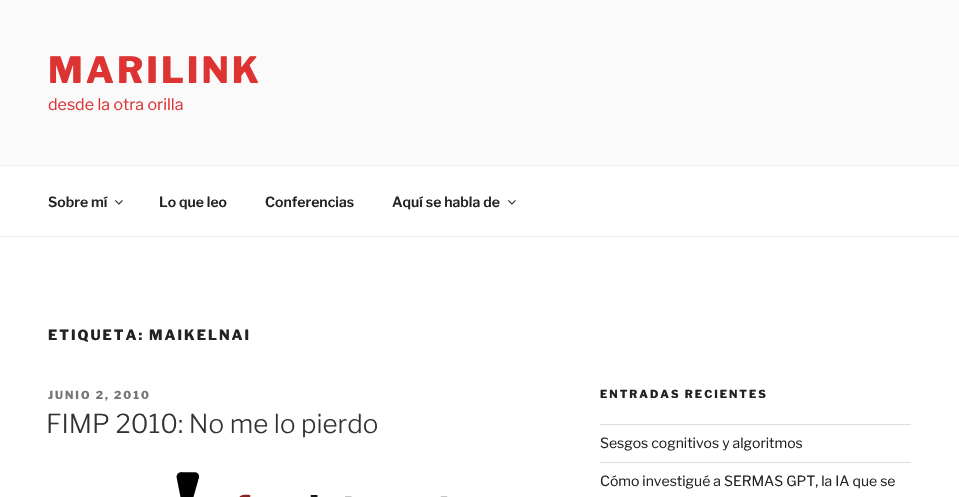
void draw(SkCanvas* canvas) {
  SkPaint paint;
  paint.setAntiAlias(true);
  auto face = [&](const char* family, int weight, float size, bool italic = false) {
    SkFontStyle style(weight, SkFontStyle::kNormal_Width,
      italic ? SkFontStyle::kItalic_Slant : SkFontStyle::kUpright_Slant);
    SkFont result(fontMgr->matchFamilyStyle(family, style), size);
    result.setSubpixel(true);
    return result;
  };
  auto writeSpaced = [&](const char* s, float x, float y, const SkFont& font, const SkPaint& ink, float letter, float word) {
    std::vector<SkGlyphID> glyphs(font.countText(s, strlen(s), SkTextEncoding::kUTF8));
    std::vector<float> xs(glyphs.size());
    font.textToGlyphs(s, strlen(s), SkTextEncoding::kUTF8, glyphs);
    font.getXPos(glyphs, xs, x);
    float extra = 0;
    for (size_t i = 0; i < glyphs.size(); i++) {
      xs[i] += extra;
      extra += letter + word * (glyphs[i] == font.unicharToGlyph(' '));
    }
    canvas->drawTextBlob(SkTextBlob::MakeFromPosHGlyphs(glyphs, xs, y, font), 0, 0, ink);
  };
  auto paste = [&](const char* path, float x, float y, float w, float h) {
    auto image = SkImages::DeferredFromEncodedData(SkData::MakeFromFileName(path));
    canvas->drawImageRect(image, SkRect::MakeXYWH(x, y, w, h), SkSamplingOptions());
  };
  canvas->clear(0xffffffff);
  {
    const struct { float x, y, w, h; SkColor color; } items[] = {
      {0, 0, 959, 165, 0xfffafafa},
      {0, 165, 959, 1, 0xffeeeeee},
      {0, 236, 959, 1, 0xffeeeeee},
    };
    for (auto [x, y, w, h, color] : items) {
      paint.setColor(color);
      canvas->drawRect(SkRect::MakeXYWH(x, y, w, h), paint);
    }
  }
  paste("img/1.png", 115, 200, 8, 5);
  paste("img/1.png", 508, 200, 8, 5);
  paste("img/2.png", 176, 472, 272, 25);
  paint.setColor(0xffdddddd);
  canvas->drawRect(SkRect::MakeXYWH(600, 424, 311, 1), paint);
  canvas->drawRect(SkRect::MakeXYWH(600, 462, 311, 1), paint);
  auto f0 = face("Libre Franklin", 100, 36);
  paint.setColor(0xffdd3333);
  writeSpaced("MARILINK", 48, 83, f0, paint, 3, 0);
  auto f1 = face("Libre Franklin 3", 100, 16);
  canvas->drawString("desde la otra orilla", 48, 110, f1, paint);
  auto f2 = face("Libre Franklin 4", 100, 14);
  paint.setColor(0xff222222);
  {
    const struct { const char* s; float x, y; } items[] = {
      {"Sobre mí", 48, 207},
      {"Lo que leo", 159, 207},
      {"Conferencias", 265, 207},
      {"Aquí se habla de", 392, 207},
    };
    for (auto [s, x, y] : items) {
      canvas->drawString(s, x, y, f2, paint);
    }
  }
  auto f3 = face("Libre Franklin", 100, 14);
  writeSpaced("ETIQUETA: MAIKELNAI", 48, 340, f3, paint, 2, 0);
  auto f4 = face("Libre Franklin", 100, 11);
  paint.setColor(0xff767676);
  writeSpaced("JUNIO 2, 2010", 48, 399, f4, paint, 2, 0);
  auto f5 = face("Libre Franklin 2", 100, 26);
  paint.setColor(0xff333333);
  canvas->drawString("FIMP 2010: No me lo pierdo", 46, 433, f5, paint);
  paint.setColor(0xff222222);
  writeSpaced("ENTRADAS RECIENTES", 600, 398, f4, paint, 2, 0);
  auto f6 = face("Libre Franklin 3", 100, 14);
  canvas->drawString("Sesgos cognitivos y algoritmos", 600, 448, f6, paint);
  canvas->drawString("Cómo investigué a SERMAS GPT, la IA que se", 600, 486, f6, paint);
}
